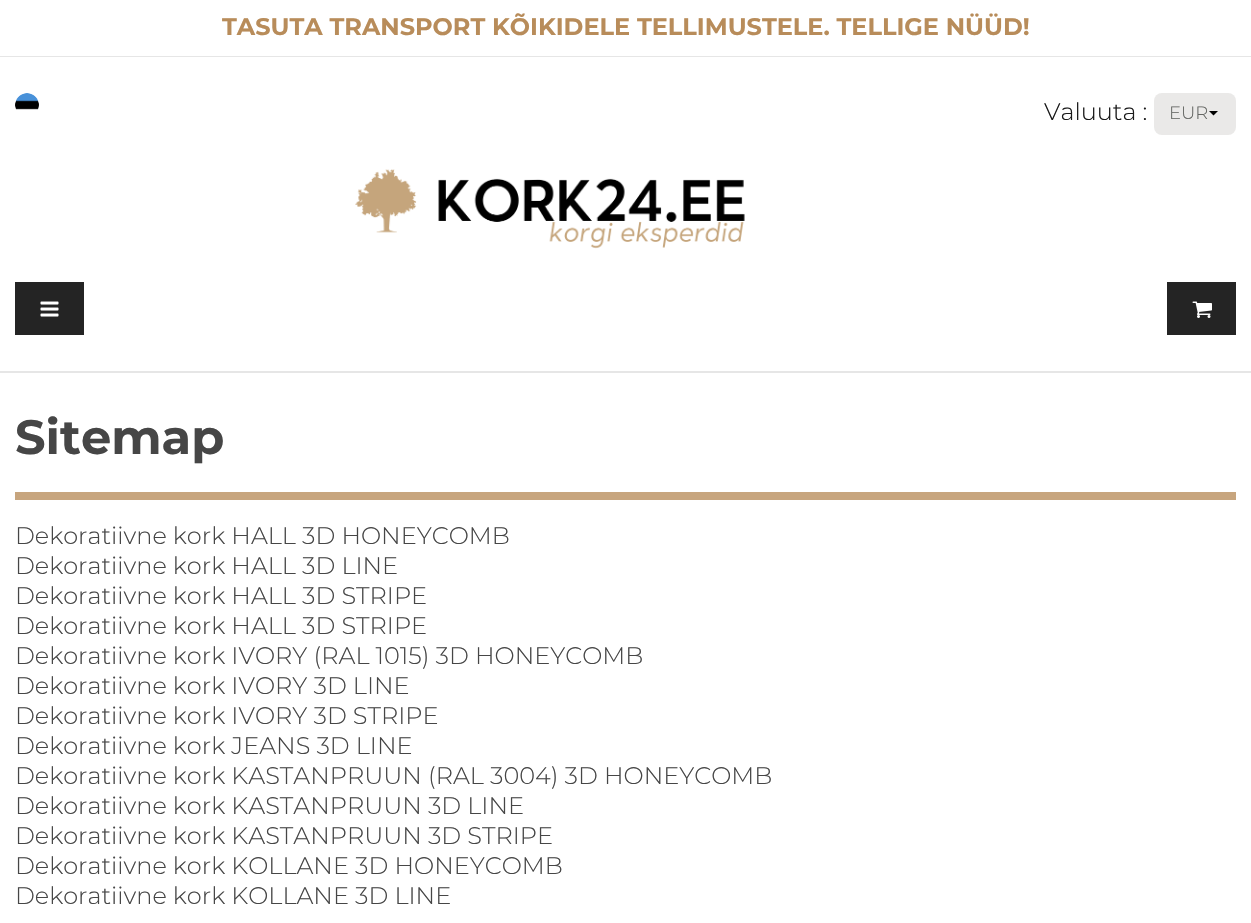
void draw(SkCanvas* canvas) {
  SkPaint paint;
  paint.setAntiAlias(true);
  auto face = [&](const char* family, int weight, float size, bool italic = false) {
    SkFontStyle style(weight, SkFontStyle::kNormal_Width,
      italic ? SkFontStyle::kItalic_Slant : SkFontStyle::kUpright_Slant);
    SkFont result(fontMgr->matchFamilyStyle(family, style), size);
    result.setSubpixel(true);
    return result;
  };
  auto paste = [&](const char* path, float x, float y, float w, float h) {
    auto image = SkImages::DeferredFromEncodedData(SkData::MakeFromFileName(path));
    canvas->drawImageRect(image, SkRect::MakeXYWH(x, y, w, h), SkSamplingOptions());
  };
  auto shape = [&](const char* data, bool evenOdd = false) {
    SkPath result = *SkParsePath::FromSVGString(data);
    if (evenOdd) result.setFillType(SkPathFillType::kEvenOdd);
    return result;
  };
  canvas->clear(0xffffffff);
  paint.setColor(0xffe6e6e6);
  canvas->drawRect(SkRect::MakeXYWH(0, 56, 1251, 1), paint);
  canvas->drawRect(SkRect::MakeXYWH(0, 371, 1251, 2), paint);
  paste("img/1.png", 15, 93, 24, 17);
  paint.setColor(0xffeae9e8);
  canvas->drawRoundRect(SkRect::MakeXYWH(1154, 93, 82, 42), 8, 8, paint);
  paint.setColor(0xff000000);
  canvas->drawPath(shape("M1218 111L1213.5 115.5L1209 111Z"), paint);
  paste("img/2.png", 355, 169, 390, 80);
  paint.setColor(0xff242424);
  canvas->drawRect(SkRect::MakeXYWH(15, 282, 69, 53), paint);
  paste("img/3.png", 40, 301, 19, 16);
  canvas->drawRect(SkRect::MakeXYWH(1167, 282, 69, 53), paint);
  paste("img/4.png", 1192, 301, 20, 17);
  paint.setColor(0xffc7a57e);
  canvas->drawRect(SkRect::MakeXYWH(15, 492, 1221, 8), paint);
  auto f0 = face("Montserrat", 700, 24);
  paint.setColor(0xffb88c5a);
  canvas->drawString("TASUTA TRANSPORT KÕIKIDELE TELLIMUSTELE. TELLIGE NÜÜD!", 222, 35, f0, paint);
  auto f1 = face("Montserrat", 300, 24);
  paint.setColor(0xff1a1a1a);
  canvas->drawString("Valuuta :", 1044, 120, f1, paint);
  auto f2 = face("Montserrat", 300, 18);
  paint.setColor(0xff656764);
  canvas->drawString("EUR", 1169, 119, f2, paint);
  auto f3 = face("Montserrat", 700, 48);
  paint.setColor(0xff464646);
  canvas->drawString("Sitemap", 15, 454, f3, paint);
  {
    const struct { const char* s; float x, y; } items[] = {
      {"Dekoratiivne kork HALL 3D HONEYCOMB", 15, 544},
      {"Dekoratiivne kork HALL 3D LINE", 15, 574},
      {"Dekoratiivne kork HALL 3D STRIPE", 15, 604},
      {"Dekoratiivne kork HALL 3D STRIPE", 15, 634},
      {"Dekoratiivne kork IVORY (RAL 1015) 3D HONEYCOMB", 15, 664},
      {"Dekoratiivne kork IVORY 3D LINE", 15, 694},
      {"Dekoratiivne kork IVORY 3D STRIPE", 15, 724},
      {"Dekoratiivne kork JEANS 3D LINE", 15, 754},
      {"Dekoratiivne kork KASTANPRUUN (RAL 3004) 3D HONEYCOMB", 15, 784},
      {"Dekoratiivne kork KASTANPRUUN 3D LINE", 15, 814},
      {"Dekoratiivne kork KASTANPRUUN 3D STRIPE", 15, 844},
      {"Dekoratiivne kork KOLLANE 3D HONEYCOMB", 15, 874},
      {"Dekoratiivne kork KOLLANE 3D LINE", 15, 904},
    };
    for (auto [s, x, y] : items) {
      canvas->drawString(s, x, y, f1, paint);
    }
  }
}
